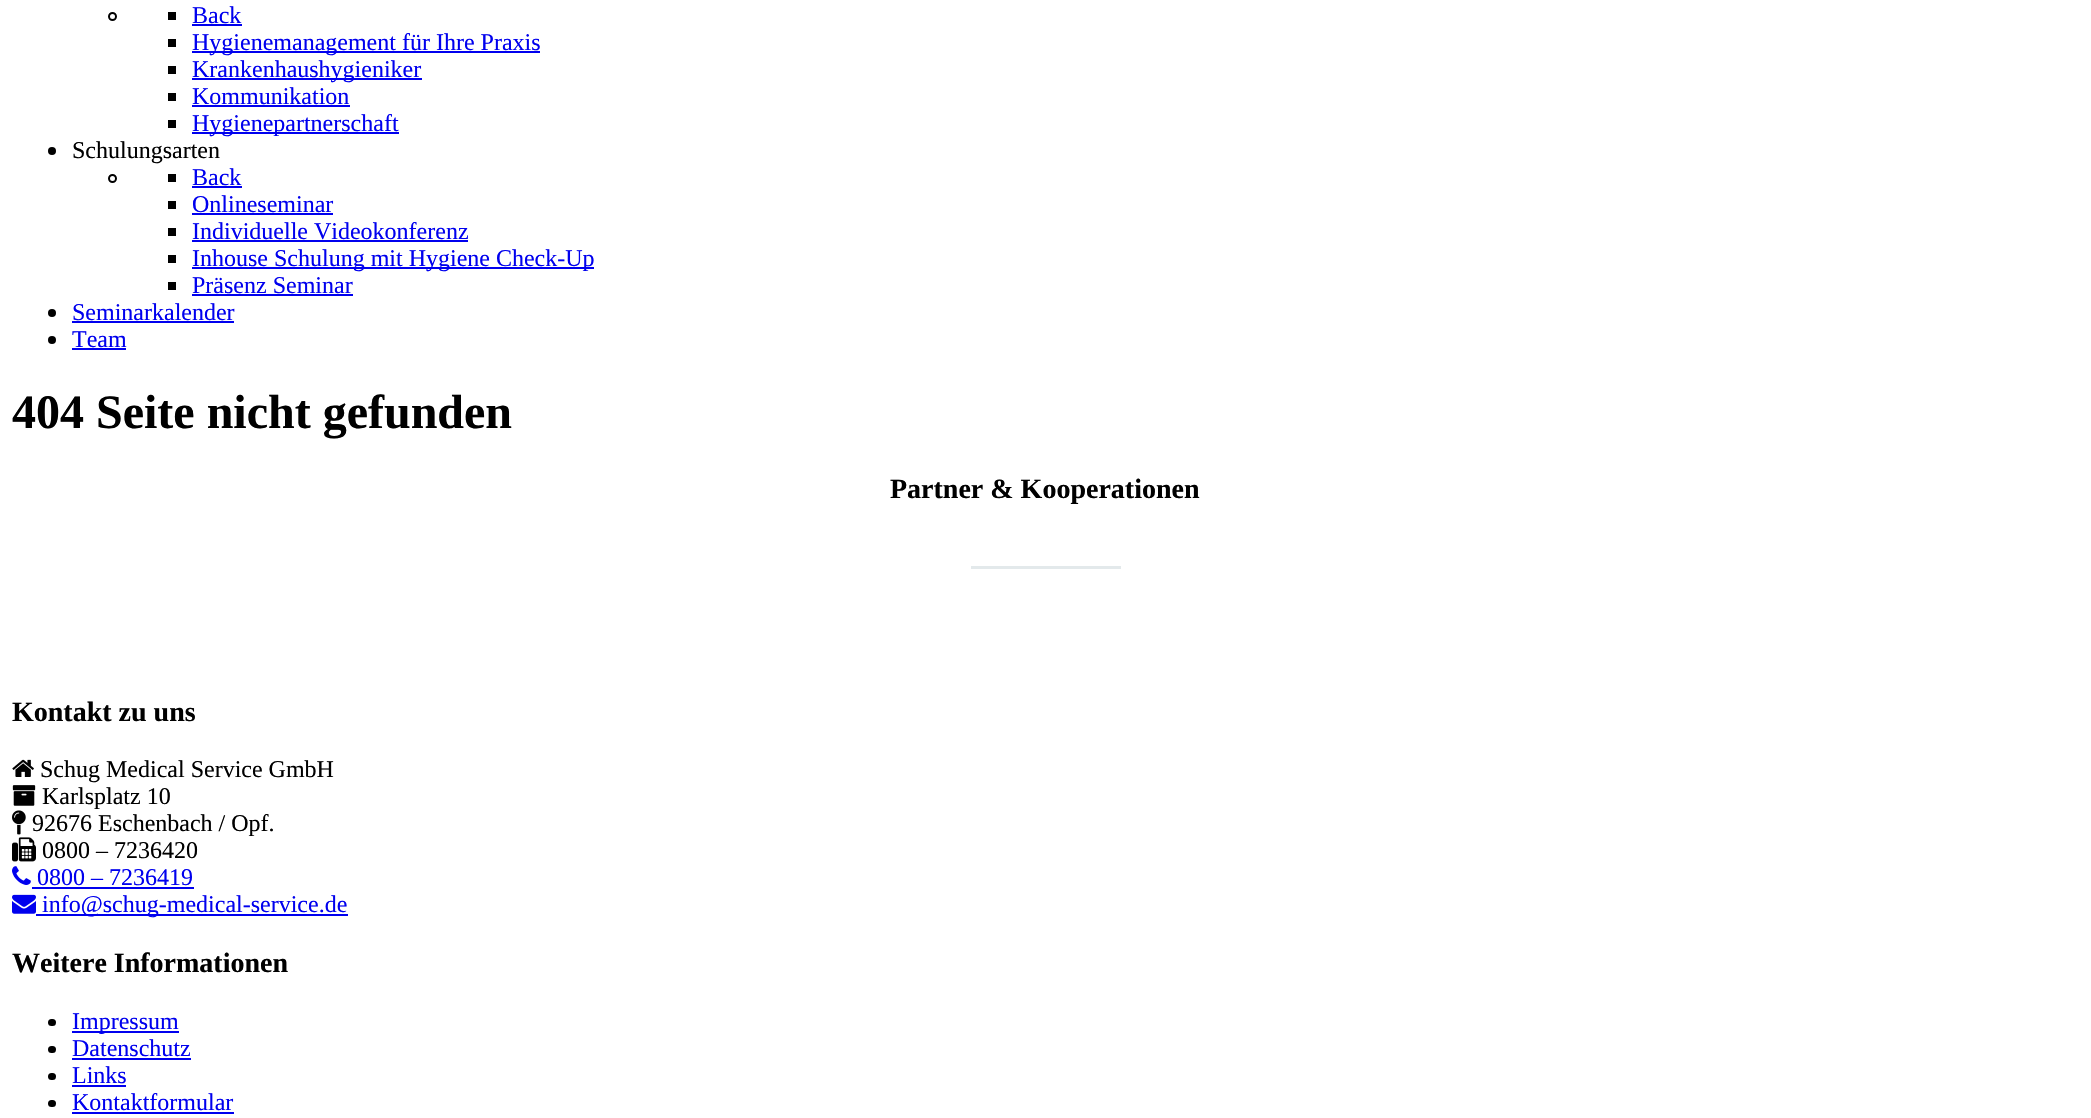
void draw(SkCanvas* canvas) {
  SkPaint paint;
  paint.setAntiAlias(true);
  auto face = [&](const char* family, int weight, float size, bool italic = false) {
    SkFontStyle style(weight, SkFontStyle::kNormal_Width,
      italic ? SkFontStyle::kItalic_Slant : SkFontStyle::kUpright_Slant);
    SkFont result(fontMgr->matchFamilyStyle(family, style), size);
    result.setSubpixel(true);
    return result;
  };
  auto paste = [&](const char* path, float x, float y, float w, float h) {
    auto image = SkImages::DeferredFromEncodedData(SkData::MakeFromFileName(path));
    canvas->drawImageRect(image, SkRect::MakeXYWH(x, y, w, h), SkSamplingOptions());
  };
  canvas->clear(0xffffffff);
  paint.setStroke(true);
  paint.setStrokeWidth(2);
  paint.setColor(0xff000000);
  canvas->drawCircle(112.5f, 16.5f, 3.5f, paint);
  paint.setStroke(false);
  {
    const struct { float x, y, w, h; SkColor color; } items[] = {
      {168, 12, 8, 8, 0xff000000},
      {192, 24, 50, 2, 0xff0000ee},
      {168, 39, 8, 8, 0xff000000},
      {192, 51, 348, 2, 0xff0000ee},
      {168, 66, 8, 8, 0xff000000},
      {192, 78, 230, 2, 0xff0000ee},
      {168, 93, 8, 8, 0xff000000},
      {192, 105, 158, 2, 0xff0000ee},
      {168, 120, 8, 8, 0xff000000},
      {192, 132, 207, 2, 0xff0000ee},
    };
    for (auto [x, y, w, h, color] : items) {
      paint.setColor(color);
      canvas->drawRect(SkRect::MakeXYWH(x, y, w, h), paint);
    }
  }
  paint.setColor(0xff000000);
  canvas->drawCircle(52, 151, 4, paint);
  paint.setStroke(true);
  canvas->drawCircle(112.5f, 178.5f, 3.5f, paint);
  paint.setStroke(false);
  {
    const struct { float x, y, w, h; SkColor color; } items[] = {
      {168, 174, 8, 8, 0xff000000},
      {192, 186, 50, 2, 0xff0000ee},
      {168, 201, 8, 8, 0xff000000},
      {192, 213, 141, 2, 0xff0000ee},
      {168, 228, 8, 8, 0xff000000},
      {192, 240, 276, 2, 0xff0000ee},
      {168, 255, 8, 8, 0xff000000},
      {192, 267, 402, 2, 0xff0000ee},
      {168, 282, 8, 8, 0xff000000},
      {192, 294, 161, 2, 0xff0000ee},
    };
    for (auto [x, y, w, h, color] : items) {
      paint.setColor(color);
      canvas->drawRect(SkRect::MakeXYWH(x, y, w, h), paint);
    }
  }
  paint.setColor(0xff000000);
  canvas->drawCircle(52, 313, 4, paint);
  paint.setColor(0xff0000ee);
  canvas->drawRect(SkRect::MakeXYWH(72, 321, 162, 2), paint);
  paint.setColor(0xff000000);
  canvas->drawCircle(52, 340, 4, paint);
  paint.setColor(0xff0000ee);
  canvas->drawRect(SkRect::MakeXYWH(72, 348, 54, 2), paint);
  paint.setColor(0xffe3e9eb);
  canvas->drawRect(SkRect::MakeXYWH(971, 566, 150, 3), paint);
  paste("img/1.png", 12, 759, 22, 18);
  paste("img/2.png", 12, 785, 24, 21);
  paste("img/3.png", 12, 810, 14, 25);
  paste("img/4.png", 12, 837, 24, 25);
  paste("img/5.png", 12, 866, 19, 19);
  paint.setColor(0xff0000ee);
  canvas->drawRect(SkRect::MakeXYWH(32, 887, 162, 2), paint);
  paste("img/6.png", 12, 894, 24, 20);
  canvas->drawRect(SkRect::MakeXYWH(36, 914, 312, 2), paint);
  paint.setColor(0xff000000);
  canvas->drawRoundRect(SkRect::MakeXYWH(48, 1019, 8, 7), 3.5f, 3.5f, paint);
  paint.setColor(0xff0000ee);
  canvas->drawRect(SkRect::MakeXYWH(72, 1031, 107, 2), paint);
  paint.setColor(0xff000000);
  canvas->drawRoundRect(SkRect::MakeXYWH(48, 1046, 8, 7), 3.5f, 3.5f, paint);
  paint.setColor(0xff0000ee);
  canvas->drawRect(SkRect::MakeXYWH(72, 1058, 119, 2), paint);
  paint.setColor(0xff000000);
  canvas->drawRoundRect(SkRect::MakeXYWH(48, 1073, 8, 7), 3.5f, 3.5f, paint);
  paint.setColor(0xff0000ee);
  canvas->drawRect(SkRect::MakeXYWH(72, 1085, 54, 2), paint);
  paint.setColor(0xff000000);
  canvas->drawRoundRect(SkRect::MakeXYWH(48, 1100, 8, 7), 3.5f, 3.5f, paint);
  paint.setColor(0xff0000ee);
  canvas->drawRect(SkRect::MakeXYWH(72, 1112, 162, 2), paint);
  auto f0 = face("Liberation Serif", 400, 24);
  {
    const struct { const char* s; float x, y; } items[] = {
      {"Back", 192, 23},
      {"Hygienemanagement für Ihre Praxis", 192, 50},
      {"Krankenhaushygieniker", 192, 77},
      {"Kommunikation", 192, 104},
      {"Hygienepartnerschaft", 192, 131},
    };
    for (auto [s, x, y] : items) {
      canvas->drawString(s, x, y, f0, paint);
    }
  }
  paint.setColor(0xff000000);
  canvas->drawString("Schulungsarten", 72, 158, f0, paint);
  paint.setColor(0xff0000ee);
  {
    const struct { const char* s; float x, y; } items[] = {
      {"Back", 192, 185},
      {"Onlineseminar", 192, 212},
      {"Individuelle Videokonferenz", 192, 239},
      {"Inhouse Schulung mit Hygiene Check-Up", 192, 266},
      {"Präsenz Seminar", 192, 293},
      {"Seminarkalender", 72, 320},
      {"Team", 72, 347},
    };
    for (auto [s, x, y] : items) {
      canvas->drawString(s, x, y, f0, paint);
    }
  }
  auto f1 = face("Liberation Serif", 700, 48);
  paint.setColor(0xff000000);
  canvas->drawString("404 Seite nicht gefunden", 12, 428, f1, paint);
  auto f2 = face("Liberation Serif", 700, 28);
  canvas->drawString("Partner & Kooperationen", 890, 498, f2, paint);
  canvas->drawString("Kontakt zu uns", 12, 721, f2, paint);
  {
    const struct { const char* s; float x, y; } items[] = {
      {"Schug Medical Service GmbH", 40, 777},
      {"Karlsplatz 10", 42, 804},
      {"92676 Eschenbach / Opf.", 32, 831},
      {"0800 – 7236420", 42, 858},
    };
    for (auto [s, x, y] : items) {
      canvas->drawString(s, x, y, f0, paint);
    }
  }
  paint.setColor(0xff0000ee);
  canvas->drawString("0800 – 7236419", 37, 885, f0, paint);
  canvas->drawString("info@schug-medical-service.de", 42, 912, f0, paint);
  paint.setColor(0xff000000);
  canvas->drawString("Weitere Informationen", 12, 972, f2, paint);
  paint.setColor(0xff0000ee);
  {
    const struct { const char* s; float x, y; } items[] = {
      {"Impressum", 72, 1029},
      {"Datenschutz", 72, 1056},
      {"Links", 72, 1083},
      {"Kontaktformular", 72, 1110},
    };
    for (auto [s, x, y] : items) {
      canvas->drawString(s, x, y, f0, paint);
    }
  }
}
